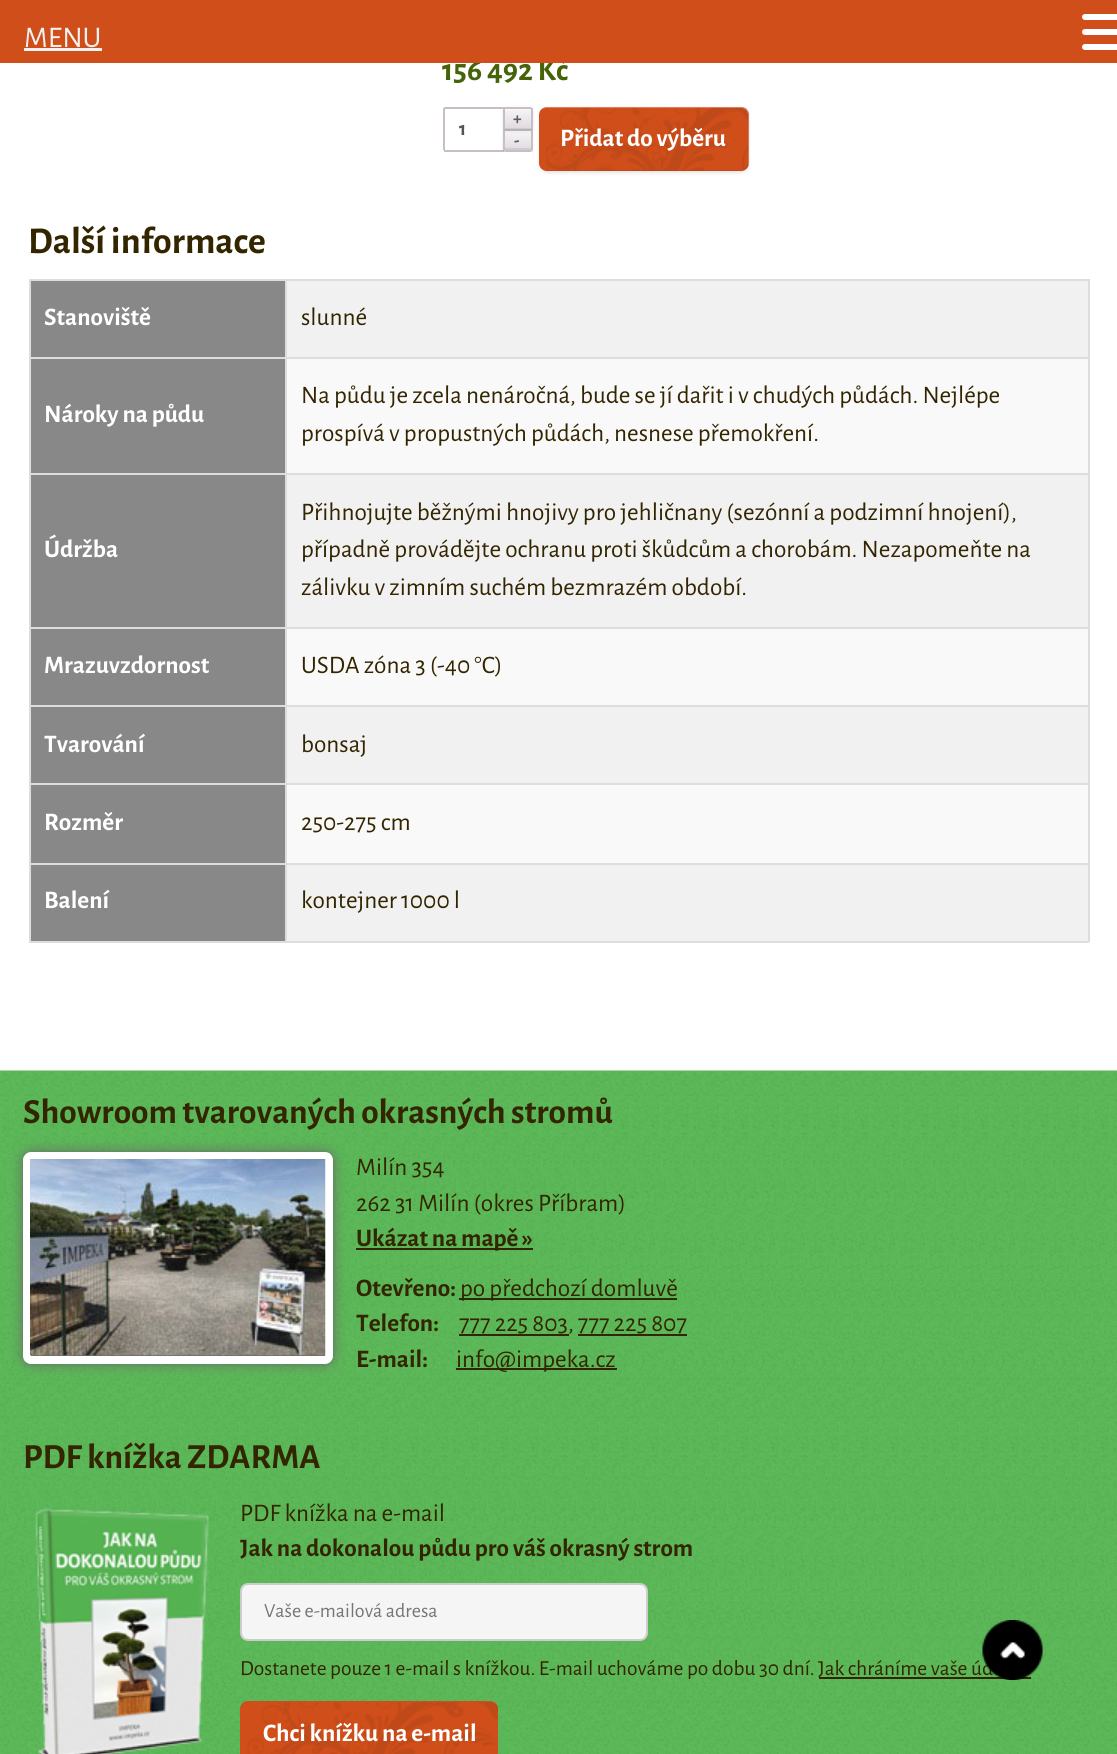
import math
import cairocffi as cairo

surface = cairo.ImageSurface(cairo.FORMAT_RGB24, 1117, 1754)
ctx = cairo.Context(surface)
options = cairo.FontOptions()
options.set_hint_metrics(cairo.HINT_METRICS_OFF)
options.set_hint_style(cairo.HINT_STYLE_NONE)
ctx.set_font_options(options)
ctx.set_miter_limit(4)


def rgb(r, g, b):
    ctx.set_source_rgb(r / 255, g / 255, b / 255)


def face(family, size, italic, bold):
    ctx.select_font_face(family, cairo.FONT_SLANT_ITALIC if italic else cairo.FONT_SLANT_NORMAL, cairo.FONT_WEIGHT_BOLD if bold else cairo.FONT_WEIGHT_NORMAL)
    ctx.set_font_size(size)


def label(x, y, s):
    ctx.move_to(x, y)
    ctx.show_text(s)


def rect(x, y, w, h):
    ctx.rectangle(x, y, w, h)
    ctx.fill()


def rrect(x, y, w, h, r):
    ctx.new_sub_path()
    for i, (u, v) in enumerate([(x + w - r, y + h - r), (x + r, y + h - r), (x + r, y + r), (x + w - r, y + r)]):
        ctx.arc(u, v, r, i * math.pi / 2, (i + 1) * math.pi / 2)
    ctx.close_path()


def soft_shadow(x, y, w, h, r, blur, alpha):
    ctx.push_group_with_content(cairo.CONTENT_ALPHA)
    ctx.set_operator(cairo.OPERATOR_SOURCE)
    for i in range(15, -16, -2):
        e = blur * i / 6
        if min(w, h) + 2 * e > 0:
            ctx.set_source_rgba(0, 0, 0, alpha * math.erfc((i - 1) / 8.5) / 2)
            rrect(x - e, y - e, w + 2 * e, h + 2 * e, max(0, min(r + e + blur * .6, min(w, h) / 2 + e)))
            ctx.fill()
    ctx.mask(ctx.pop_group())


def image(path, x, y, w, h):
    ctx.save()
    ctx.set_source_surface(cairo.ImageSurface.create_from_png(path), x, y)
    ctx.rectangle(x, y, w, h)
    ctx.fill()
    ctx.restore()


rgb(255, 255, 255)
ctx.paint()
face('Alegreya Sans', 31.5, 0, 1)
rgb(69, 99, 8)
label(442, 80, '156 492 Kč')
rgb(208, 78, 25)
rect(0, 0, 1117, 63)
face('Alegreya Sans', 30, 0, 0)
rgb(242, 242, 242)
label(24, 47, 'MENU')
rect(24, 48, 78, 3)
rgb(255, 255, 255)
rrect(1082, 14, 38, 6, 3)
ctx.fill()
rrect(1082, 29, 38, 6, 3)
ctx.fill()
rrect(1082, 44, 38, 6, 3)
ctx.fill()
rgb(200, 191, 198)
rect(444, 107, 60, 2)
rect(444, 150, 60, 2)
ctx.save()
ctx.rectangle(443, 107, 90, 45)
ctx.clip()
rgb(0, 0, 0)
soft_shadow(503, 131, 30, 22, 3, 1.5, 0.1)
ctx.restore()
gradient = cairo.LinearGradient(518, 131, 518, 150)
gradient.add_color_stop_rgba(0, 0.969, 0.965, 0.969, 1)
gradient.add_color_stop_rgba(1, 0.878, 0.855, 0.875, 1)
ctx.set_source(gradient)
rect(503, 132, 30, 18)
rgb(249, 248, 249)
rect(504, 131, 27, 1)
rgb(209, 203, 208)
ctx.new_path()
ctx.move_to(504, 147)
ctx.curve_to(504, 151, 505.5, 150, 509.5, 150)
ctx.line_to(525.5, 150)
ctx.curve_to(529.5, 150, 531, 151, 531, 147)
ctx.curve_to(531, 148, 530, 148, 530, 148)
ctx.line_to(506, 148)
ctx.curve_to(505, 148, 504, 148, 504, 147)
ctx.close_path()
ctx.fill()
ctx.new_path()
ctx.move_to(504, 130)
ctx.line_to(532, 130)
ctx.line_to(532, 149)
ctx.curve_to(532, 150, 531, 151, 530, 151)
ctx.line_to(506, 151)
ctx.curve_to(505, 151, 504, 150, 504, 149)
ctx.close_path()
rgb(200, 191, 198)
ctx.stroke()
rgb(0, 0, 0)
soft_shadow(503, 108, 30, 23, 3, 1.5, 0.1)
ctx.save()
ctx.new_path()
ctx.move_to(506, 107)
ctx.line_to(530, 107)
ctx.curve_to(531.5, 107, 533, 108.5, 533, 110)
ctx.line_to(533, 129)
ctx.line_to(503, 129)
ctx.line_to(503, 110)
ctx.curve_to(503, 108.5, 504.5, 107, 506, 107)
ctx.close_path()
ctx.clip()
gradient = cairo.LinearGradient(518, 87, 518, 108)
gradient.add_color_stop_rgba(0, 0.969, 0.965, 0.969, 1)
gradient.add_color_stop_rgba(1, 0.878, 0.855, 0.875, 1)
ctx.set_source(gradient)
rect(503, 107, 30, 1)
ctx.restore()
gradient = cairo.LinearGradient(518, 108, 518, 129)
gradient.add_color_stop_rgba(0, 0.969, 0.965, 0.969, 1)
gradient.add_color_stop_rgba(1, 0.878, 0.855, 0.875, 1)
ctx.set_source(gradient)
rect(505, 109, 26, 19)
rgb(248, 248, 248)
ctx.new_path()
ctx.move_to(506, 110)
ctx.line_to(530, 110)
ctx.curve_to(530, 110, 531, 110, 531, 111)
ctx.curve_to(531, 107, 529.5, 108, 525.5, 108)
ctx.line_to(509.5, 108)
ctx.curve_to(505.5, 108, 504, 107, 504, 111)
ctx.curve_to(504, 110, 505, 110, 506, 110)
ctx.close_path()
ctx.fill()
rgb(208, 203, 207)
rect(504, 128, 27, 1)
rgb(200, 191, 198)
rect(504, 107, 27, 2)
rect(531, 108, 2, 21)
rect(503, 108, 2, 21)
face('Alegreya Sans', 18, 0, 1)
rgb(94, 94, 94)
label(513, 124, '+')
rgb(200, 191, 198)
rect(443, 108, 2, 42)
face('Alegreya Sans', 20, 0, 1)
rgb(84, 84, 84)
label(459, 135, '1')
face('Alegreya Sans', 18, 0, 1)
rgb(94, 94, 94)
label(514, 146, '-')
rgb(0, 0, 0)
soft_shadow(539, 108, 210, 65, 8, 1.5, 0.1)
rgb(208, 78, 25)
rrect(539, 107, 210, 64, 8)
ctx.fill()
image('image0.png', 546, 107, 203, 64)
ctx.set_source_rgba(1, 1, 1, 0.3)
ctx.new_path()
ctx.move_to(546, 108)
ctx.line_to(741, 108)
ctx.curve_to(745, 108, 748, 111, 748, 116)
ctx.line_to(748, 165)
ctx.line_to(748, 168)
ctx.curve_to(748, 166, 749, 165, 749, 163)
ctx.line_to(749, 115)
ctx.curve_to(749, 111, 745, 107, 741, 107)
ctx.line_to(547, 107)
ctx.curve_to(545, 107, 542, 108, 541, 110)
ctx.curve_to(542, 109, 544, 108, 546, 108)
ctx.close_path()
ctx.fill()
ctx.set_source_rgba(0, 0, 0, 0.07)
ctx.new_path()
ctx.move_to(540, 167)
ctx.curve_to(542, 169, 544, 171, 547, 171)
ctx.line_to(741, 171)
ctx.curve_to(745, 171, 749, 167, 749, 163)
ctx.line_to(749, 115)
ctx.curve_to(749, 114, 749, 112, 748, 111)
ctx.line_to(748, 162)
ctx.curve_to(748, 166, 745, 170, 741, 170)
ctx.line_to(546, 170)
ctx.curve_to(544, 170, 542, 169, 540, 167)
ctx.close_path()
ctx.fill()
face('Alegreya Sans', 25.2, 0, 1)
rgb(255, 255, 255)
label(560, 146, 'Přidat do výběru')
face('Alegreya Sans', 37.75, 0, 1)
rgb(51, 37, 0)
label(28, 253, 'Další informace')
rgb(136, 136, 136)
rect(31, 281, 254, 76)
rgb(221, 221, 221)
rect(285, 279, 804, 2)
rect(285, 357, 804, 2)
rect(285, 473, 804, 2)
rect(285, 627, 804, 2)
rect(285, 705, 804, 2)
rect(285, 783, 804, 2)
rect(285, 863, 804, 2)
rect(1088, 863, 2, 79)
rect(285, 941, 804, 2)
rect(285, 863, 2, 79)
rect(29, 863, 258, 2)
rect(285, 783, 2, 81)
rect(29, 783, 258, 2)
rect(285, 705, 2, 80)
rect(29, 705, 258, 2)
rect(285, 627, 2, 80)
rect(29, 627, 258, 2)
rect(285, 473, 2, 156)
rect(29, 473, 258, 2)
rect(285, 357, 2, 117)
rect(29, 357, 258, 2)
rect(285, 279, 2, 80)
rect(29, 279, 258, 2)
rect(29, 941, 258, 2)
rect(29, 863, 2, 79)
rect(29, 783, 2, 81)
rect(29, 705, 2, 80)
rect(29, 627, 2, 80)
rect(29, 473, 2, 156)
rect(29, 357, 2, 117)
rect(29, 279, 2, 80)
face('Alegreya Sans', 25.2, 0, 1)
rgb(255, 255, 255)
label(44, 325, 'Stanoviště')
rgb(241, 241, 241)
rect(287, 281, 801, 76)
rgb(221, 221, 221)
rect(1088, 783, 2, 81)
rect(1088, 705, 2, 80)
rect(1088, 627, 2, 80)
rect(1088, 473, 2, 156)
rect(1088, 357, 2, 117)
rect(1088, 279, 2, 80)
face('Alegreya Sans', 25.2, 0, 0)
rgb(51, 37, 0)
label(301, 325, 'slunné')
rgb(136, 136, 136)
rect(31, 359, 254, 114)
face('Alegreya Sans', 25.2, 0, 1)
rgb(255, 255, 255)
label(44, 422, 'Nároky na půdu')
rgb(249, 249, 249)
rect(287, 359, 801, 114)
face('Alegreya Sans', 25.2, 0, 0)
rgb(51, 37, 0)
label(301, 403, 'Na půdu je zcela nenáročná, bude se jí dařit i v chudých půdách. Nejlépe')
label(301, 441, 'prospívá v propustných půdách, nesnese přemokření.')
rgb(136, 136, 136)
rect(31, 475, 254, 152)
face('Alegreya Sans', 25.2, 0, 1)
rgb(255, 255, 255)
label(44, 557, 'Údržba')
rgb(241, 241, 241)
rect(287, 475, 801, 152)
face('Alegreya Sans', 25.2, 0, 0)
rgb(51, 37, 0)
label(301, 520, 'Přihnojujte běžnými hnojivy pro jehličnany (sezónní a podzimní hnojení),')
label(301, 557, 'případně provádějte ochranu proti škůdcům a chorobám. Nezapomeňte na')
label(301, 595, 'zálivku v zimním suchém bezmrazém období.')
rgb(136, 136, 136)
rect(31, 629, 254, 76)
face('Alegreya Sans', 25.2, 0, 1)
rgb(255, 255, 255)
label(44, 673, 'Mrazuvzdornost')
rgb(249, 249, 249)
rect(287, 629, 801, 76)
face('Alegreya Sans', 25.2, 0, 0)
rgb(51, 37, 0)
label(301, 673, 'USDA zóna 3 (-40 °C)')
rgb(136, 136, 136)
rect(31, 707, 254, 76)
face('Alegreya Sans', 25.2, 0, 1)
rgb(255, 255, 255)
label(44, 752, 'Tvarování')
rgb(241, 241, 241)
rect(287, 707, 801, 76)
face('Alegreya Sans', 25.2, 0, 0)
rgb(51, 37, 0)
label(301, 752, 'bonsaj')
rgb(136, 136, 136)
rect(31, 785, 254, 78)
face('Alegreya Sans', 25.2, 0, 1)
rgb(255, 255, 255)
label(44, 830, 'Rozměr')
rgb(249, 249, 249)
rect(287, 785, 801, 78)
face('Alegreya Sans', 25.2, 0, 0)
rgb(51, 37, 0)
label(301, 830, '250-275 cm')
rgb(136, 136, 136)
rect(31, 865, 254, 76)
face('Alegreya Sans', 25.2, 0, 1)
rgb(255, 255, 255)
label(44, 908, 'Balení')
rgb(241, 241, 241)
rect(287, 865, 801, 76)
face('Alegreya Sans', 25.2, 0, 0)
rgb(51, 37, 0)
label(301, 908, 'kontejner 1000 l')
image('image1.png', 0, 1070, 1117, 684)
face('Alegreya Sans', 35.25, 0, 1)
label(23, 1123, 'Showroom tvarovaných okrasných stromů')
rgb(102, 102, 102)
soft_shadow(23, 1152, 310, 212, 8, 6, 1)
rrect(27, 1156, 302, 204, 4)
rgb(255, 255, 255)
ctx.set_line_width(8)
ctx.stroke()
image('image2.png', 30, 1159, 296, 197)
face('Alegreya Sans', 25.2, 0, 0)
rgb(51, 37, 0)
label(356, 1175, 'Milín 354')
label(356, 1211, '262 31 Milín (okres Příbram)')
rect(356, 1248, 177, 2)
face('Alegreya Sans', 25.2, 0, 1)
label(356, 1246, 'Ukázat na mapě »')
label(356, 1296, 'Otevřeno:')
rect(459, 1298, 218, 2)
face('Alegreya Sans', 25.2, 0, 0)
label(460, 1296, 'po předchozí domluvě')
face('Alegreya Sans', 25.2, 0, 1)
label(356, 1331, 'Telefon:')
face('Alegreya Sans', 25.2, 0, 0)
label(459, 1331, '777 225 803, 777 225 807')
rect(459, 1334, 110, 2)
rect(578, 1334, 109, 2)
face('Alegreya Sans', 25.2, 0, 1)
label(356, 1367, 'E-mail:')
rect(456, 1368, 161, 2)
face('Alegreya Sans', 25.2, 0, 0)
label(456, 1367, 'info@impeka.cz')
face('Alegreya Sans', 35.25, 0, 1)
label(23, 1468, 'PDF knížka ZDARMA')
image('image3.png', 28, 1508, 181, 246)
face('Alegreya Sans', 25.2, 0, 0)
label(240, 1521, 'PDF knížka na e-mail')
face('Alegreya Sans', 25.2, 0, 1)
label(240, 1556, 'Jak na dokonalou půdu pro váš okrasný strom')
rgb(245, 245, 245)
rrect(241, 1584, 406, 56, 7)
ctx.fill_preserve()
rgb(204, 204, 204)
ctx.set_line_width(2)
ctx.stroke()
face('Alegreya Sans', 20, 0, 0)
rgb(117, 117, 117)
label(264, 1617, 'Vaše e-mailová adresa')
face('Alegreya Sans', 21.4, 0, 0)
rgb(51, 37, 0)
label(240, 1675, 'Dostanete pouze 1 e-mail s knížkou. E-mail uchováme po dobu 30 dní.')
rect(819, 1677, 212, 2)
label(818, 1675, 'Jak chráníme vaše úd')
rgb(208, 78, 25)
rrect(240, 1701, 258, 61, 8)
ctx.fill()
image('image4.png', 247, 1702, 251, 52)
face('Alegreya Sans', 25.2, 0, 1)
rgb(255, 255, 255)
label(263, 1741, 'Chci knížku na e-mail')
image('image5.png', 982, 1620, 61, 60)
surface.write_to_png('render.png')
